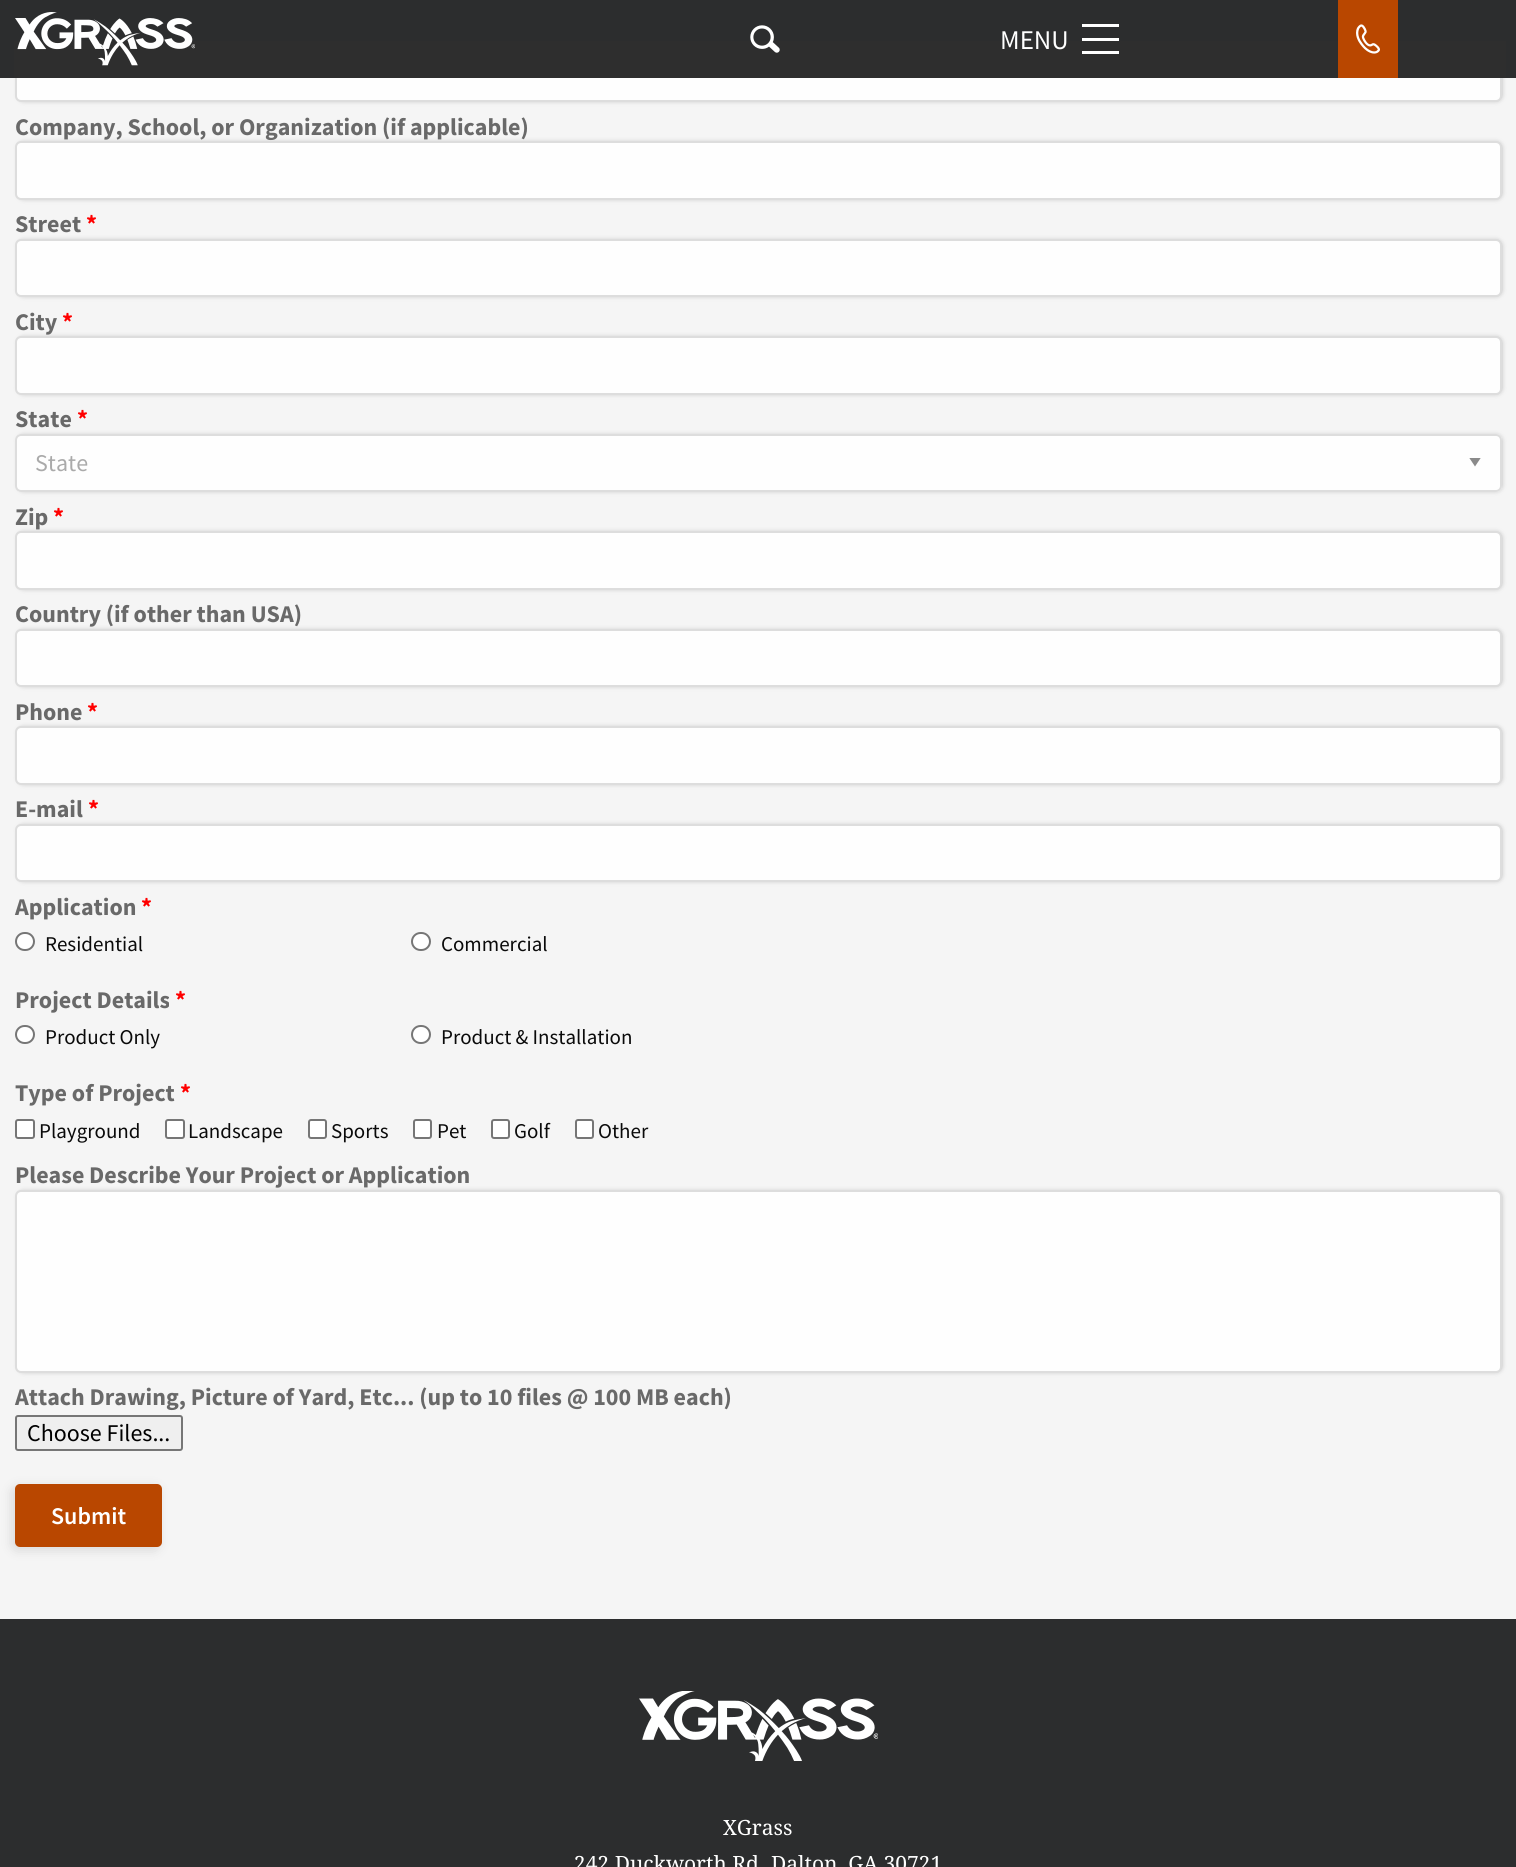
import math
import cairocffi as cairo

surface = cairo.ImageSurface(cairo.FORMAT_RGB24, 1516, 1867)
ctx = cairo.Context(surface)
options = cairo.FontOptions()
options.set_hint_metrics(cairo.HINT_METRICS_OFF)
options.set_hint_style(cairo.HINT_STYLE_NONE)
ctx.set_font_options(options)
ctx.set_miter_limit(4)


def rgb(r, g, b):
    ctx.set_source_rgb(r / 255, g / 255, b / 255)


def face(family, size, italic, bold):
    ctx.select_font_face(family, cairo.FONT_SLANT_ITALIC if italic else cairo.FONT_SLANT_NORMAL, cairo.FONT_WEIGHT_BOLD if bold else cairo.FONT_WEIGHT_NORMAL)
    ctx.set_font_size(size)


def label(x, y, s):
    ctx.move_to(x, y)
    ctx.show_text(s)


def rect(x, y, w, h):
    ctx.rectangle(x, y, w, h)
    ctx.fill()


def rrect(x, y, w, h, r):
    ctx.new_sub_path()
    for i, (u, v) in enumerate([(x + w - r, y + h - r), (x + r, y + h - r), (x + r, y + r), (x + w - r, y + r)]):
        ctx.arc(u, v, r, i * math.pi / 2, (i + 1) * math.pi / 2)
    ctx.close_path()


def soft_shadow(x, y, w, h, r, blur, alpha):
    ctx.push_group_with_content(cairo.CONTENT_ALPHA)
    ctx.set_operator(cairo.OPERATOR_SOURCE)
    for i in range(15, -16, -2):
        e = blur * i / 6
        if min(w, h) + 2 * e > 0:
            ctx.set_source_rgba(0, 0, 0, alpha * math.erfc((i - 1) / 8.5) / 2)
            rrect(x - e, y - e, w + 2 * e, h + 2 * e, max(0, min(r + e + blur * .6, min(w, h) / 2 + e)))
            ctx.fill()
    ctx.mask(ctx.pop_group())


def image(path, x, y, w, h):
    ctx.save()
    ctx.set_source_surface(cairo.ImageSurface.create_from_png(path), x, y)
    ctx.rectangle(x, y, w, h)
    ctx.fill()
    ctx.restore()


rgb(44, 45, 46)
ctx.paint()
rgb(245, 245, 245)
rect(0, 78, 1516, 1541)
rgb(0, 0, 0)
soft_shadow(20, 47, 1480, 52, 3, 3, 0.5)
rgb(254, 254, 254)
rrect(16, 45, 1485, 56, 5)
ctx.fill_preserve()
rgb(221, 221, 221)
ctx.stroke()
rgb(46, 46, 46)
rect(14, 41, 1492, 37)
image('image0.png', 15, 12, 180, 54)
image('image1.png', 750, 25, 30, 28)
face('Source Sans Pro', 27, 0, 0)
rgb(255, 255, 255)
label(1000, 49, 'MENU')
rect(1082, 38, 37, 3)
rect(1082, 24, 37, 3)
rect(1082, 51, 37, 3)
rgb(185, 71, 0)
rect(1338, 0, 60, 78)
image('image2.png', 1356, 24, 24, 30)
rgb(0, 0, 0)
soft_shadow(20, 144, 1480, 53, 3, 3, 0.5)
face('Source Sans Pro', 24, 0, 1)
rgb(105, 105, 105)
label(15, 135, 'Company, School, or Organization (if applicable)')
rgb(254, 254, 254)
rrect(16, 142, 1485, 57, 5)
ctx.fill_preserve()
rgb(221, 221, 221)
ctx.stroke()
rgb(0, 0, 0)
soft_shadow(20, 242, 1480, 52, 3, 3, 0.5)
rgb(105, 105, 105)
label(15, 232, 'Street')
rgb(255, 0, 0)
label(86, 232, '*')
rgb(254, 254, 254)
rrect(16, 240, 1485, 56, 5)
ctx.fill_preserve()
rgb(221, 221, 221)
ctx.stroke()
rgb(0, 0, 0)
soft_shadow(20, 339, 1480, 53, 3, 3, 0.5)
rgb(105, 105, 105)
label(15, 330, 'City')
rgb(255, 0, 0)
label(62, 330, '*')
rgb(254, 254, 254)
rrect(16, 337, 1485, 57, 5)
ctx.fill_preserve()
rgb(221, 221, 221)
ctx.stroke()
rgb(105, 105, 105)
label(15, 427, 'State')
rgb(255, 0, 0)
label(77, 427, '*')
rgb(0, 0, 0)
soft_shadow(20, 437, 1480, 52, 3, 3, 0.5)
rgb(254, 254, 254)
rrect(15, 434, 1487, 58, 6)
ctx.fill()
ctx.save()
ctx.rectangle(1469, 458, 13, 9)
ctx.clip()
rgb(138, 138, 138)
ctx.new_path()
ctx.move_to(1469, 457.5)
ctx.line_to(1481, 457.5)
ctx.line_to(1475, 466.5)
ctx.close_path()
ctx.fill()
ctx.restore()
rrect(16, 435, 1485, 56, 5)
rgb(221, 221, 221)
ctx.stroke()
face('Source Sans Pro', 24, 0, 0)
rgb(170, 170, 170)
label(35, 471, 'State')
rgb(0, 0, 0)
soft_shadow(20, 534, 1480, 53, 3, 3, 0.5)
face('Source Sans Pro', 24, 0, 1)
rgb(105, 105, 105)
label(15, 525, 'Zip')
rgb(255, 0, 0)
label(53, 525, '*')
rgb(254, 254, 254)
rrect(16, 532, 1485, 57, 5)
ctx.fill_preserve()
rgb(221, 221, 221)
ctx.stroke()
rgb(0, 0, 0)
soft_shadow(20, 632, 1480, 52, 3, 3, 0.5)
rgb(105, 105, 105)
label(15, 622, 'Country (if other than USA)')
rgb(254, 254, 254)
rrect(16, 630, 1485, 56, 5)
ctx.fill_preserve()
rgb(221, 221, 221)
ctx.stroke()
rgb(0, 0, 0)
soft_shadow(20, 729, 1480, 53, 3, 3, 0.5)
rgb(105, 105, 105)
label(15, 720, 'Phone')
rgb(255, 0, 0)
label(87, 720, '*')
rgb(254, 254, 254)
rrect(16, 727, 1485, 57, 5)
ctx.fill_preserve()
rgb(221, 221, 221)
ctx.stroke()
rgb(0, 0, 0)
soft_shadow(20, 827, 1480, 52, 3, 3, 0.5)
rgb(105, 105, 105)
label(15, 817, 'E-mail')
rgb(255, 0, 0)
label(88, 817, '*')
rgb(254, 254, 254)
rrect(16, 825, 1485, 56, 5)
ctx.fill_preserve()
rgb(221, 221, 221)
ctx.stroke()
rgb(105, 105, 105)
label(15, 915, 'Application')
rgb(255, 0, 0)
label(141, 915, '*')
rgb(255, 255, 255)
rrect(16, 933, 18, 17, 8.5)
ctx.fill_preserve()
rgb(118, 118, 118)
ctx.stroke()
face('Source Sans Pro', 21, 0, 0)
rgb(10, 10, 10)
label(45, 951, 'Residential')
rgb(255, 255, 255)
rrect(412, 933, 18, 17, 8.5)
ctx.fill_preserve()
rgb(118, 118, 118)
ctx.stroke()
rgb(10, 10, 10)
label(441, 951, 'Commercial')
face('Source Sans Pro', 24, 0, 1)
rgb(105, 105, 105)
label(15, 1008, 'Project Details')
rgb(255, 0, 0)
label(175, 1008, '*')
rgb(255, 255, 255)
rrect(16, 1026, 18, 17, 8.5)
ctx.fill_preserve()
rgb(118, 118, 118)
ctx.stroke()
face('Source Sans Pro', 21, 0, 0)
rgb(10, 10, 10)
label(45, 1044, 'Product Only')
rgb(255, 255, 255)
rrect(412, 1026, 18, 17, 8.5)
ctx.fill_preserve()
rgb(118, 118, 118)
ctx.stroke()
rgb(10, 10, 10)
label(441, 1044, 'Product & Installation')
face('Source Sans Pro', 24, 0, 1)
rgb(105, 105, 105)
label(15, 1101, 'Type of Project')
rgb(255, 0, 0)
label(180, 1101, '*')
rgb(255, 255, 255)
rrect(16, 1120, 18, 18, 2)
ctx.fill_preserve()
rgb(118, 118, 118)
ctx.stroke()
face('Source Sans Pro', 21, 0, 0)
rgb(10, 10, 10)
label(39, 1138, 'Playground')
rgb(255, 255, 255)
rrect(166, 1120, 18, 18, 2)
ctx.fill_preserve()
rgb(118, 118, 118)
ctx.stroke()
rgb(10, 10, 10)
label(188, 1138, 'Landscape')
rgb(255, 255, 255)
rrect(309, 1120, 17, 18, 2)
ctx.fill_preserve()
rgb(118, 118, 118)
ctx.stroke()
rgb(10, 10, 10)
label(331, 1138, 'Sports')
rgb(255, 255, 255)
rrect(414, 1120, 17, 18, 2)
ctx.fill_preserve()
rgb(118, 118, 118)
ctx.stroke()
rgb(10, 10, 10)
label(437, 1138, 'Pet')
rgb(255, 255, 255)
rrect(492, 1120, 17, 18, 2)
ctx.fill_preserve()
rgb(118, 118, 118)
ctx.stroke()
rgb(10, 10, 10)
label(514, 1138, 'Golf')
rgb(255, 255, 255)
rrect(576, 1120, 17, 18, 2)
ctx.fill_preserve()
rgb(118, 118, 118)
ctx.stroke()
rgb(10, 10, 10)
label(598, 1138, 'Other')
face('Source Sans Pro', 24, 0, 1)
rgb(105, 105, 105)
label(15, 1183, 'Please Describe Your Project or Application')
rgb(0, 0, 0)
soft_shadow(20, 1193, 1480, 177, 3, 3, 0.5)
rgb(254, 254, 254)
rrect(16, 1191, 1485, 181, 5)
ctx.fill_preserve()
rgb(221, 221, 221)
ctx.stroke()
rgb(105, 105, 105)
label(15, 1405, 'Attach Drawing, Picture of Yard, Etc... (up to 10 files @ 100 MB each)')
rgb(239, 239, 239)
rrect(16, 1416, 166, 34, 2)
ctx.fill_preserve()
rgb(118, 118, 118)
ctx.stroke()
face('Source Sans Pro', 24, 0, 0)
rgb(0, 0, 0)
label(27, 1441, 'Choose Files...')
rgb(0, 0, 0)
soft_shadow(12, 1487, 147, 63, 5, 6, 0.12)
rgb(185, 71, 0)
rrect(15, 1484, 147, 63, 5)
ctx.fill()
face('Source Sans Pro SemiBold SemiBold', 24, 0, 0)
rgb(255, 255, 255)
label(51, 1524, 'Submit')
image('image3.png', 639, 1691, 239, 70)
face('Droid Serif', 21, 0, 0)
label(723, 1835, 'XGrass')
label(574, 1871, '242 Duckworth Rd')
label(771, 1871, 'Dalton, GA 30721')
surface.write_to_png('render.png')
